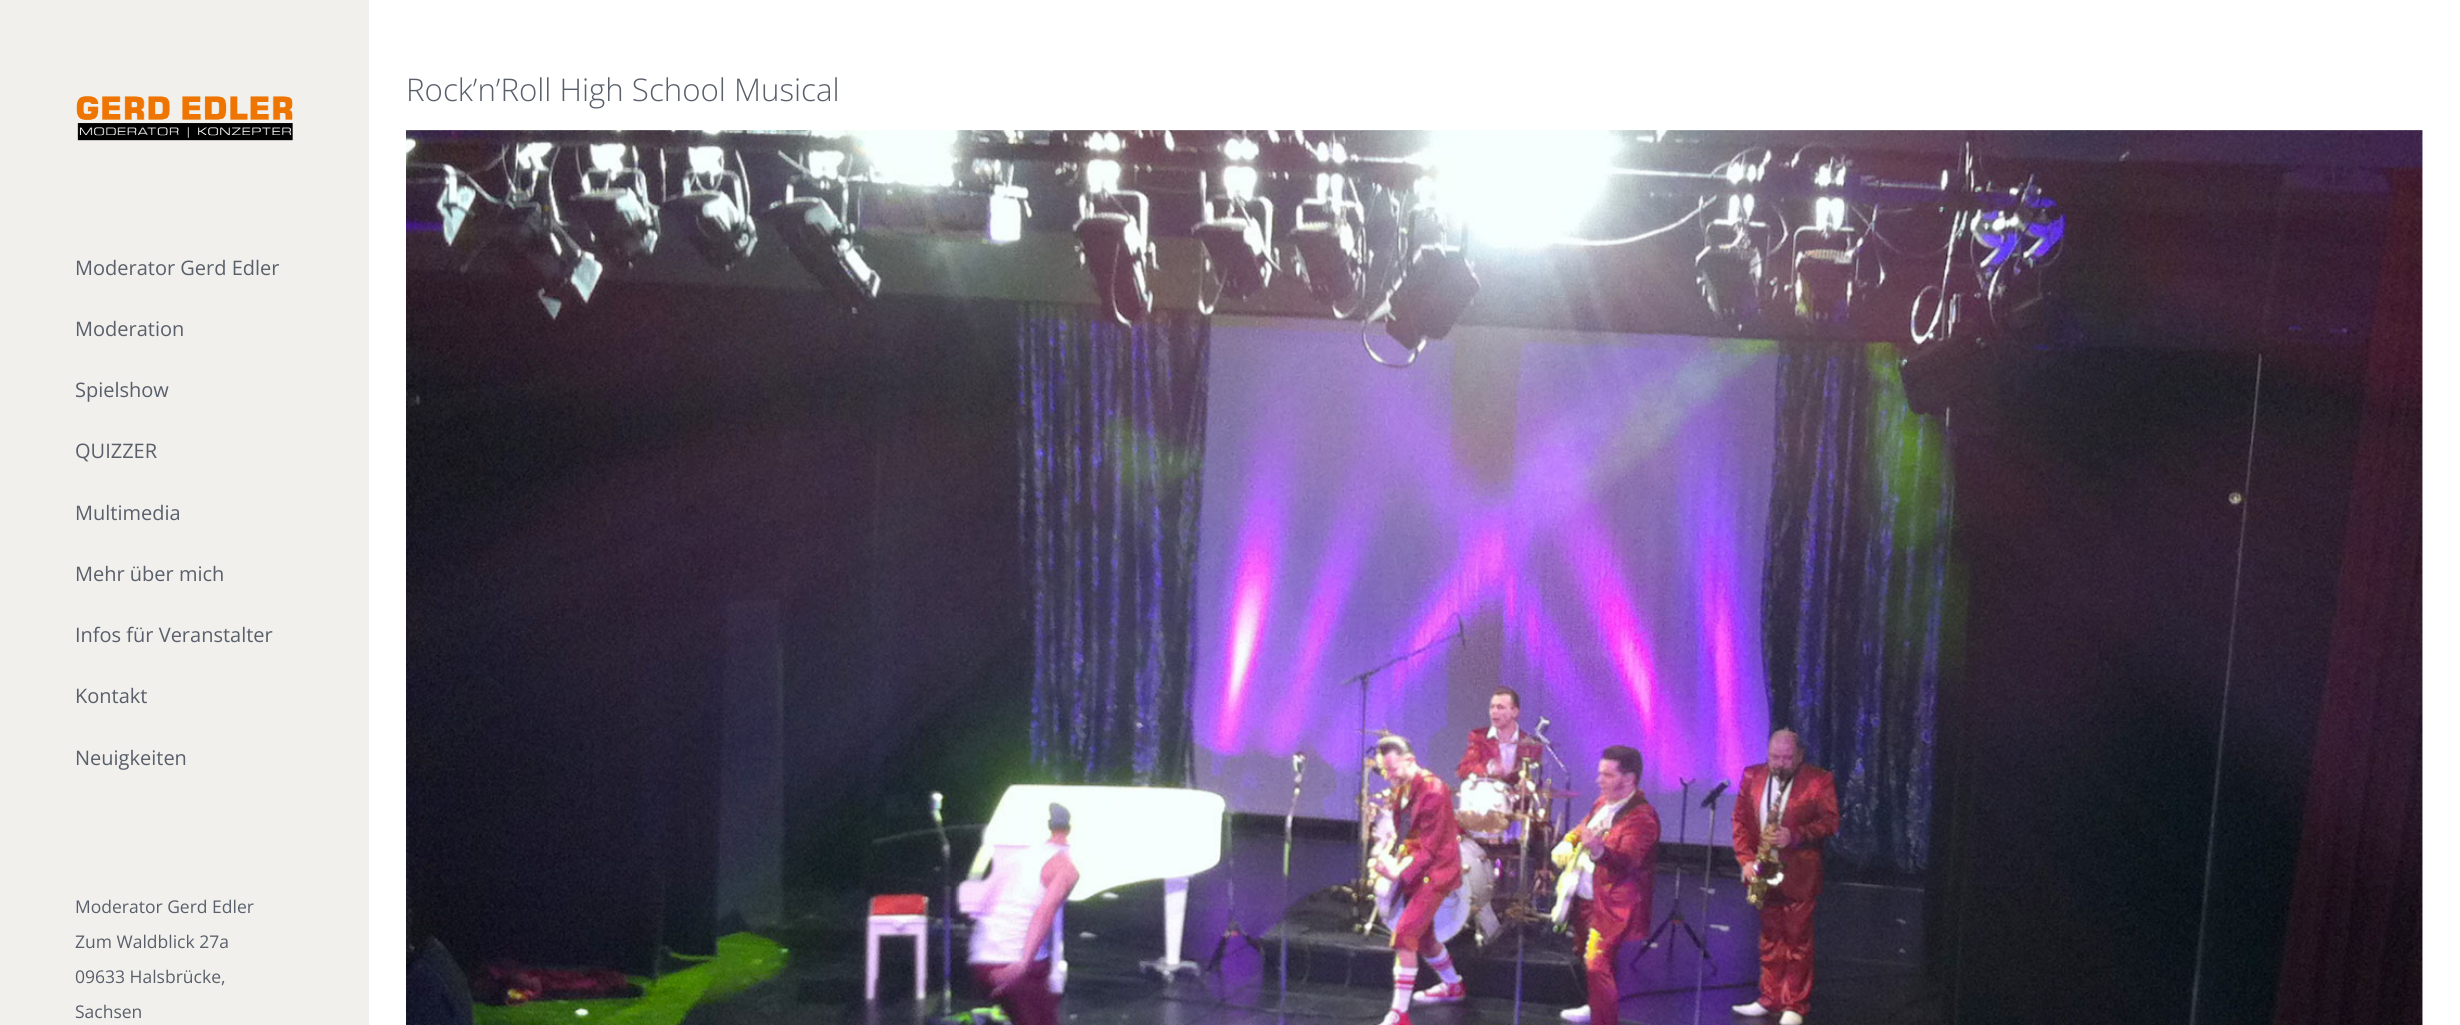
import math
import cairocffi as cairo

surface = cairo.ImageSurface(cairo.FORMAT_RGB24, 2460, 1025)
ctx = cairo.Context(surface)
options = cairo.FontOptions()
options.set_hint_metrics(cairo.HINT_METRICS_OFF)
options.set_hint_style(cairo.HINT_STYLE_NONE)
ctx.set_font_options(options)
ctx.set_miter_limit(4)


def rgb(r, g, b):
    ctx.set_source_rgb(r / 255, g / 255, b / 255)


def face(family, size, italic, bold):
    ctx.select_font_face(family, cairo.FONT_SLANT_ITALIC if italic else cairo.FONT_SLANT_NORMAL, cairo.FONT_WEIGHT_BOLD if bold else cairo.FONT_WEIGHT_NORMAL)
    ctx.set_font_size(size)


def label(x, y, s):
    ctx.move_to(x, y)
    ctx.show_text(s)


def rect(x, y, w, h):
    ctx.rectangle(x, y, w, h)
    ctx.fill()


def image(path, x, y, w, h):
    ctx.save()
    ctx.set_source_surface(cairo.ImageSurface.create_from_png(path), x, y)
    ctx.rectangle(x, y, w, h)
    ctx.fill()
    ctx.restore()


rgb(255, 255, 255)
ctx.paint()
face('Open Sans Light', 31.25, 0, 0)
rgb(89, 95, 107)
label(406, 101, 'Rock’n’Roll High School Musical')
image('image0.png', 406, 130, 2017, 895)
rgb(241, 240, 236)
rect(0, 0, 369, 1025)
image('image1.png', 76, 96, 217, 45)
face('Open Sans', 20, 0, 0)
rgb(89, 95, 107)
label(75, 275, 'Moderator Gerd Edler')
label(75, 336, 'Moderation')
label(75, 397, 'Spielshow')
label(75, 458, 'QUIZZER')
label(75, 520, 'Multimedia')
label(75, 581, 'Mehr über mich')
label(75, 642, 'Infos für Veranstalter')
label(75, 703, 'Kontakt')
label(75, 765, 'Neuigkeiten')
face('Open Sans', 17.5, 0, 0)
label(75, 913, 'Moderator Gerd Edler')
label(75, 948, 'Zum Waldblick 27a')
label(75, 983, '09633 Halsbrücke,')
label(75, 1018, 'Sachsen')
surface.write_to_png('render.png')
